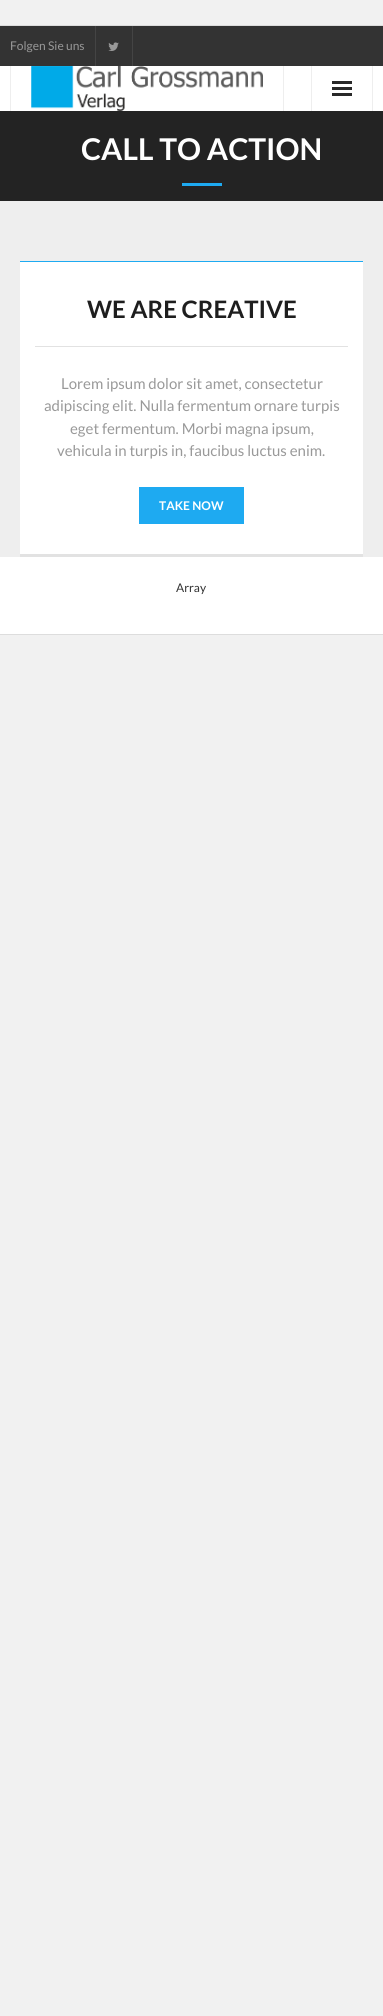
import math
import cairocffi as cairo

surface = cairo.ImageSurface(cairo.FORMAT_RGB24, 383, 2016)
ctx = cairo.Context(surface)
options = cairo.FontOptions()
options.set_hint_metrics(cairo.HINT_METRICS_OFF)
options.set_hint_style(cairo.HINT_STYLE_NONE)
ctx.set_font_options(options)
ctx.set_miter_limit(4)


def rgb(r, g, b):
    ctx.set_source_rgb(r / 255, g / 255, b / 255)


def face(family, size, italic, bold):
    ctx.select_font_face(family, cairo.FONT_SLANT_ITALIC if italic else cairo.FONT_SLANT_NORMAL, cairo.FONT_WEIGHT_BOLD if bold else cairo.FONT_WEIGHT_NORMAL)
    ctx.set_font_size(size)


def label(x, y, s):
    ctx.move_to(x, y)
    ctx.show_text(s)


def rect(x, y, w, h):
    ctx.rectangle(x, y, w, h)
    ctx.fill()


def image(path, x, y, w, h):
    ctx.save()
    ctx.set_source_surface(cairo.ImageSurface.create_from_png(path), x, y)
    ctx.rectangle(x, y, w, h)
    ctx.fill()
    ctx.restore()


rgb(241, 241, 241)
ctx.paint()
rgb(238, 238, 238)
rect(0, 201, 383, 356)
rgb(221, 221, 221)
rect(0, 25, 383, 1)
rect(0, 634, 383, 1)
rgb(51, 51, 51)
rect(0, 26, 383, 40)
face('Lato', 12, 0, 0)
rgb(153, 153, 153)
label(10, 50, 'Folgen Sie uns')
rgb(68, 68, 68)
rect(132, 26, 1, 40)
rect(95, 26, 1, 40)
image('image0.png', 108, 42, 11, 9)
rgb(255, 255, 255)
rect(0, 66, 383, 45)
rgb(238, 238, 238)
rect(283, 66, 1, 45)
rect(10, 66, 1, 45)
image('image1.png', 31, 66, 232, 45)
rect(372, 66, 1, 45)
rect(311, 66, 1, 45)
rgb(41, 41, 41)
rect(332, 81, 20, 3)
rect(332, 87, 20, 3)
rect(332, 93, 20, 3)
rgb(35, 35, 35)
rect(0, 111, 383, 90)
face('Lato', 30, 0, 1)
rgb(255, 255, 255)
label(81, 160, 'CALL TO ACTION')
rgb(30, 170, 241)
rect(182, 183, 40, 3)
rgb(255, 255, 255)
rect(20, 262, 343, 292)
rgb(30, 170, 241)
rect(20, 261, 343, 1)
rgb(226, 226, 226)
rect(20, 554, 343, 3)
rect(35, 346, 313, 1)
face('Lato', 24, 0, 1)
rgb(30, 30, 30)
label(87, 318, 'WE ARE CREATIVE')
face('Lato', 15, 0, 0)
rgb(153, 153, 153)
label(61, 389, 'Lorem ipsum dolor sit amet, consectetur')
label(44, 411, 'adipiscing elit. Nulla fermentum ornare turpis')
label(70, 434, 'eget fermentum. Morbi magna ipsum,')
label(57, 456, 'vehicula in turpis in, faucibus luctus enim.')
rgb(30, 170, 241)
rect(139, 487, 105, 37)
face('Lato', 12, 0, 1)
rgb(255, 255, 255)
label(159, 510, 'TAKE NOW')
rect(0, 557, 383, 77)
face('Lato', 12, 0, 0)
rgb(51, 51, 51)
label(176, 592, 'Array')
surface.write_to_png('render.png')
